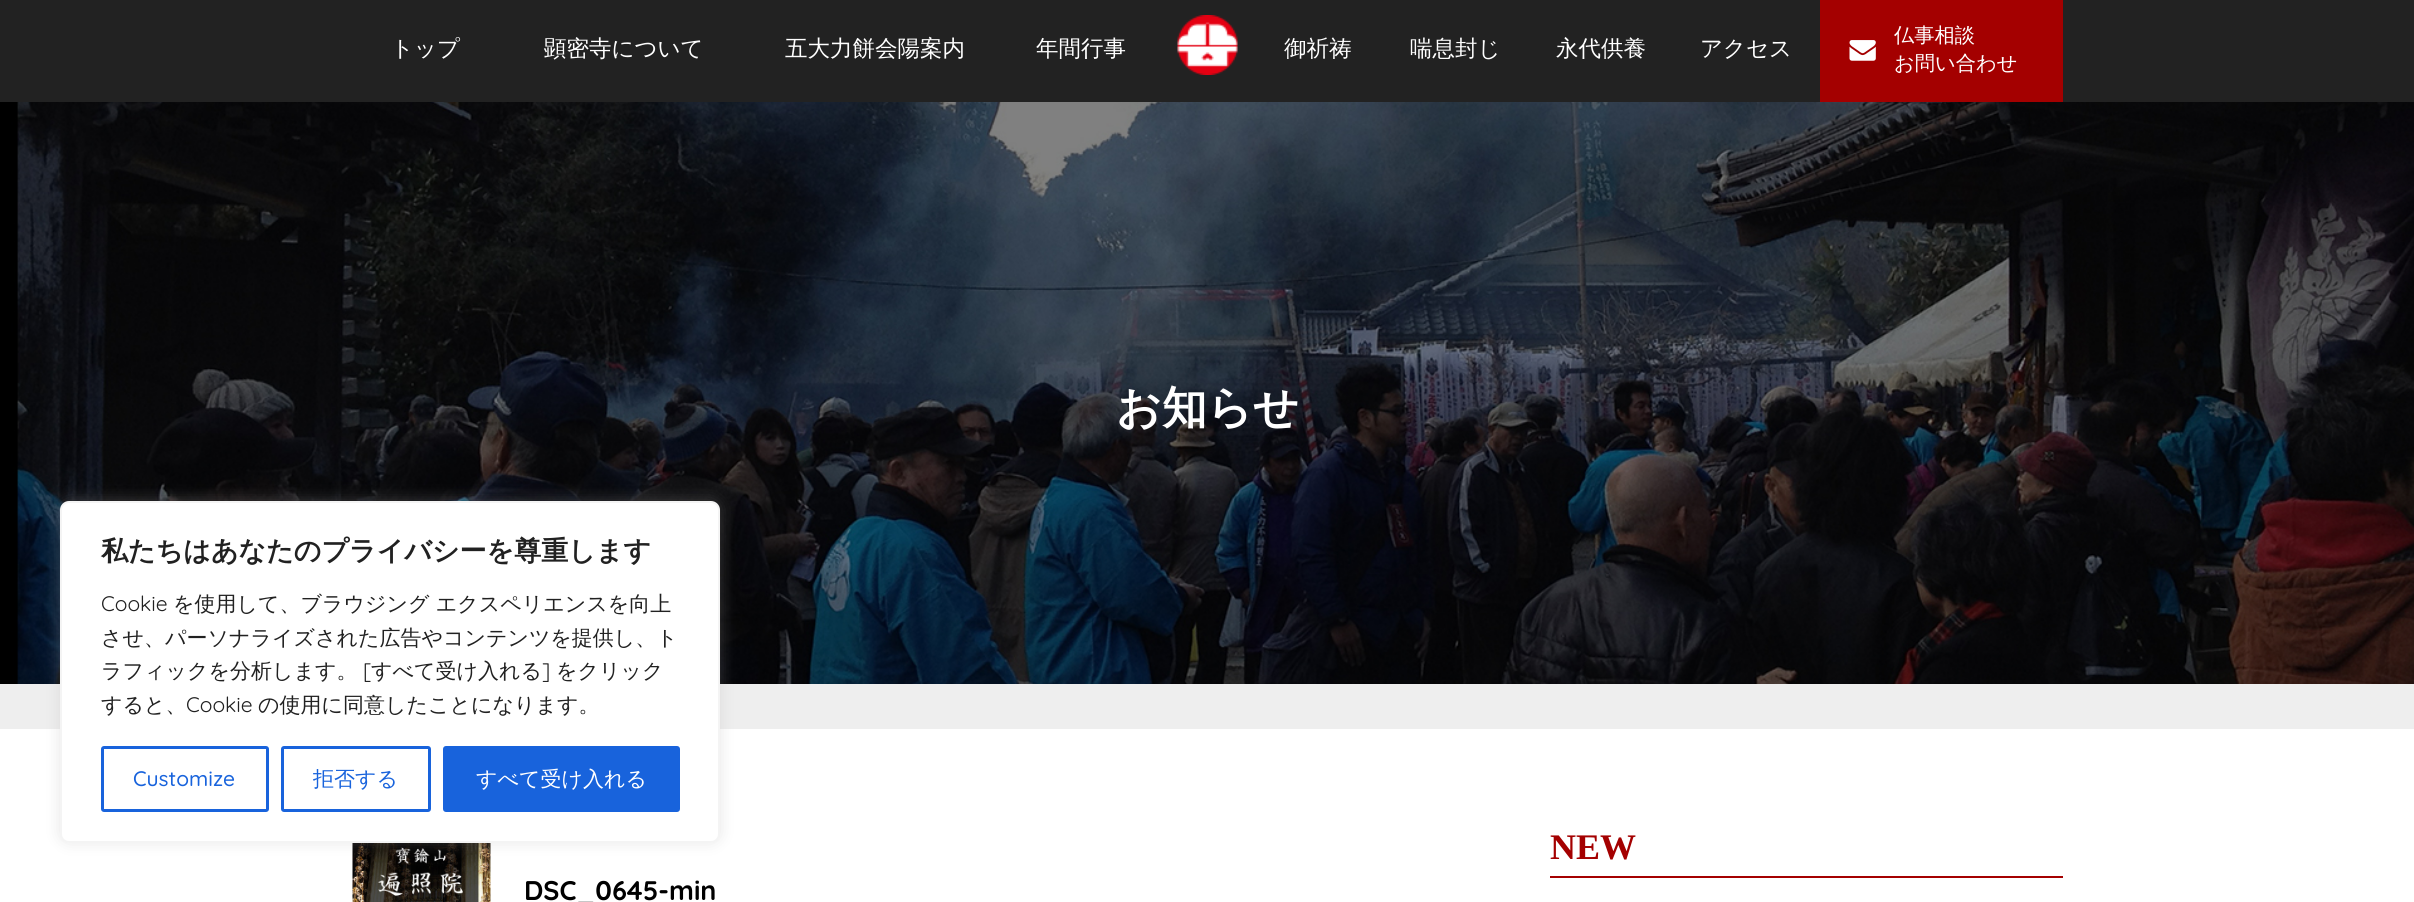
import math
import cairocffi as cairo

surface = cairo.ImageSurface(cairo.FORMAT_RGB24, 2414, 902)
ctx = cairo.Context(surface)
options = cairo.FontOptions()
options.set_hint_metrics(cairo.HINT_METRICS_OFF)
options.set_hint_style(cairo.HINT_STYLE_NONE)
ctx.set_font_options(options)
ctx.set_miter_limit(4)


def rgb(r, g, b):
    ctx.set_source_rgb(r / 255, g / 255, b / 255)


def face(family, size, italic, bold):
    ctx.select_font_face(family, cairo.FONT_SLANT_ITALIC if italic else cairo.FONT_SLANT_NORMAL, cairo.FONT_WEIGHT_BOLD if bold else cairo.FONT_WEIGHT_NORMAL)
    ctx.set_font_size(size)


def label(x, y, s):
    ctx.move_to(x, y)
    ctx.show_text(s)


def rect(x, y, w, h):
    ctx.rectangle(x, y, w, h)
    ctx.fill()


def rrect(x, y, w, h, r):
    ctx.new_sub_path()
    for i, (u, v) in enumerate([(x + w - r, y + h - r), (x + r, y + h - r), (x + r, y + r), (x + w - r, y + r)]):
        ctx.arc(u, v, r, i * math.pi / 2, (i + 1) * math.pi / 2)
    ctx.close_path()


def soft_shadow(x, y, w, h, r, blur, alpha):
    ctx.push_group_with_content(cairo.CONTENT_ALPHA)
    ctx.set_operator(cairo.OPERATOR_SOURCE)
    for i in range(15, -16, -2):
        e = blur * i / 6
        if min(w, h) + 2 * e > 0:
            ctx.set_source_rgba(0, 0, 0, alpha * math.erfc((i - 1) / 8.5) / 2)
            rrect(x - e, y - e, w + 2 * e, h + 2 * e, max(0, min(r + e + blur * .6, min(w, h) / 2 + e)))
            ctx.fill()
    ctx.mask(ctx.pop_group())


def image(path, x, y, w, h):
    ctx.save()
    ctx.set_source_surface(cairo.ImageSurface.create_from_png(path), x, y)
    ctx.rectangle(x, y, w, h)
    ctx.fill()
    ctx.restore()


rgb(255, 255, 255)
ctx.paint()
image('image2.png', 0, 102, 2414, 582)
rgb(238, 238, 238)
rect(0, 684, 2414, 45)
image('image3.png', 352, 843, 139, 59)
rgb(172, 171, 171)
soft_shadow(60, 500, 660, 342, 9, 7.5, 0.3)
rgb(255, 255, 255)
rrect(61, 502, 658, 340, 8)
ctx.fill_preserve()
rgb(244, 244, 244)
ctx.stroke()
face('WenQuanYi Zen Hei', 27, 0, 1)
rgb(33, 33, 33)
label(101, 560, '私たちはあなたのプライバシーを尊重します')
face('Quicksand', 21, 0, 0)
label(101, 611, 'Cookie')
face('WenQuanYi Zen Hei Medium', 21, 0, 0)
label(173, 611, 'を使用して、ブラウジング エクスペリエンスを向上')
label(101, 645, 'させ、パーソナライズされた広告やコンテンツを提供し、ト')
label(101, 678, 'ラフィックを分析します。')
face('Quicksand', 21, 0, 0)
label(363, 678, '[')
face('WenQuanYi Zen Hei Medium', 21, 0, 0)
label(371, 678, 'すべて受け入れる')
face('Quicksand', 21, 0, 0)
label(542, 678, ']')
face('WenQuanYi Zen Hei Medium', 21, 0, 0)
label(556, 678, 'をクリック')
label(101, 712, 'すると、')
face('Quicksand', 21, 0, 0)
label(186, 712, 'Cookie')
face('WenQuanYi Zen Hei Medium', 21, 0, 0)
label(258, 712, 'の使用に同意したことになります。')
rrect(102.5, 747.5, 165, 63, 1.5)
rgb(24, 99, 220)
ctx.set_line_width(3)
ctx.stroke()
face('Quicksand Medium', 21, 0, 0)
label(133, 786, 'Customize')
rrect(282.5, 747.5, 147, 63, 1.5)
ctx.stroke()
face('WenQuanYi Zen Hei Medium', 21, 0, 0)
label(313, 786, '拒否する')
rrect(444.5, 747.5, 234, 63, 1.5)
ctx.fill_preserve()
ctx.stroke()
rgb(255, 255, 255)
label(476, 786, 'すべて受け入れる')
rgb(34, 34, 34)
rect(0, 0, 2414, 102)
face('WenQuanYi Zen Hei Medium', 22.5, 0, 0)
rgb(255, 255, 255)
label(391, 56, 'トップ')
label(544, 56, '顕密寺について')
label(785, 56, '五大力餅会陽案内')
label(1036, 56, '年間行事')
image('image0.png', 1177, 15, 61, 60)
label(1284, 56, '御祈祷')
label(1410, 56, '喘息封じ')
label(1556, 56, '永代供養')
label(1700, 56, 'アクセス')
rgb(164, 0, 0)
rect(1820, 0, 243, 102)
face('WenQuanYi Zen Hei Medium', 20.25, 0, 0)
rgb(255, 255, 255)
label(1894, 42, '仏事相談')
image('image1.png', 1849, 40, 27, 21)
label(1894, 70, 'お問い合わせ')
face('WenQuanYi Zen Hei', 45, 0, 1)
label(1116, 423, 'お知らせ')
rgb(164, 0, 0)
rect(1550, 876, 513, 2)
face('Liberation Serif', 36, 0, 1)
label(1550, 859, 'NEW')
face('Quicksand', 27, 0, 1)
rgb(0, 0, 0)
label(524, 900, 'DSC_0645-min')
surface.write_to_png('render.png')
